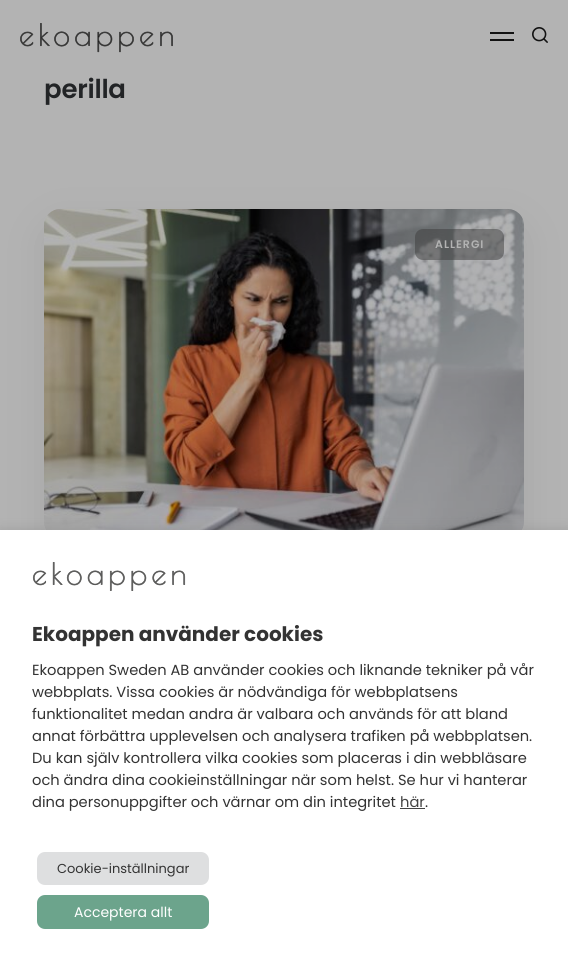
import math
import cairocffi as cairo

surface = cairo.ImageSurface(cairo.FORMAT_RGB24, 568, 966)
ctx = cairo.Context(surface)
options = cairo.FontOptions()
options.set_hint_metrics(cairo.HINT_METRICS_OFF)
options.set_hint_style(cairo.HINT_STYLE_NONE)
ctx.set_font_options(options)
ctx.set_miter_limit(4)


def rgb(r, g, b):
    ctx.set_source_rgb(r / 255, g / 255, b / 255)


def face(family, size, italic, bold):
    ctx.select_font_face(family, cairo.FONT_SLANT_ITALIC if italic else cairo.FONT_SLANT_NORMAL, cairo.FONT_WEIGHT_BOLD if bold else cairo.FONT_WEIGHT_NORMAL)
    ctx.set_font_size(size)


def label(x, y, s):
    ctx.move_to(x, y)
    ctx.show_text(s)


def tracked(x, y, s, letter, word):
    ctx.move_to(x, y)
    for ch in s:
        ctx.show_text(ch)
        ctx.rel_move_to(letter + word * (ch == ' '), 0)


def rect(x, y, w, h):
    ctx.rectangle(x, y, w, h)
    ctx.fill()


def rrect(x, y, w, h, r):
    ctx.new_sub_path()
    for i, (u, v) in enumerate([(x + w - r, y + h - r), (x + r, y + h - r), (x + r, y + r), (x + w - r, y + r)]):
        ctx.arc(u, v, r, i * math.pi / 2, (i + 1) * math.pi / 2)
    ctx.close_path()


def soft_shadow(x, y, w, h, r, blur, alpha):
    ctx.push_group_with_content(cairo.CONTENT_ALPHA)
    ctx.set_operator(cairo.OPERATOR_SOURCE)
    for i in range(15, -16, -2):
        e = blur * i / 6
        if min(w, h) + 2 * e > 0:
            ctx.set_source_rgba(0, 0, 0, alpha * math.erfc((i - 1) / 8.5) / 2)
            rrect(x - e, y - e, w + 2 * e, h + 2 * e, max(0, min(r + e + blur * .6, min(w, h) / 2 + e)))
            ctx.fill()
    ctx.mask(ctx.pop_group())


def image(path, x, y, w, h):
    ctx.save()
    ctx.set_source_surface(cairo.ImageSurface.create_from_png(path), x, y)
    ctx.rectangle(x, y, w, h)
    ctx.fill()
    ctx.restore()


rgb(179, 179, 179)
ctx.paint()
image('image0.png', 20, 23, 153, 30)
rgb(18, 18, 18)
rect(490, 32, 24, 2)
rect(490, 39, 24, 2)
image('image1.png', 532, 27, 16, 16)
face('Poppins SemiBold', 26, 0, 0)
rgb(34, 36, 38)
tracked(44, 98, 'perilla', -0.25, 0)
rgb(33, 33, 33)
soft_shadow(44, 224, 480, 329, 16, 20, 0.1)
image('image2.png', 44, 209, 480, 321)
ctx.set_source_rgba(0.239, 0.239, 0.235, 0.5)
rrect(415, 229, 89, 31, 8)
ctx.fill()
face('Poppins SemiBold', 11, 0, 0)
rgb(179, 179, 179)
tracked(435, 248, 'ALLERGI', 1, 0)
rgb(120, 120, 120)
soft_shadow(0, 529, 568, 436, 0, 5, 0.3)
rgb(255, 255, 255)
rect(0, 530, 568, 436)
image('image3.png', 32, 562, 154, 29)
face('Poppins', 20, 0, 1)
rgb(51, 51, 51)
label(32, 641, 'Ekoappen använder cookies')
face('Poppins', 14.65, 0, 0)
label(32, 675, 'Ekoappen Sweden AB använder cookies och liknande tekniker på vår')
label(32, 697, 'webbplats. Vissa cookies är nödvändiga för webbplatsens')
label(32, 719, 'funktionalitet medan andra är valbara och används för att bland')
label(32, 741, 'annat förbättra upplevelsen och analysera trafiken på webbplatsen.')
label(32, 763, 'Du kan själv kontrollera vilka cookies som placeras i din webbläsare')
label(32, 785, 'och ändra dina cookieinställningar när som helst. Se hur vi hanterar')
label(32, 807, 'dina personuppgifter och värnar om din integritet')
rgb(68, 68, 68)
label(400, 807, 'här')
rect(400, 808, 25, 1)
rgb(51, 51, 51)
label(425, 807, '.')
rgb(222, 223, 224)
rrect(37, 852, 172, 33, 8)
ctx.fill()
face('Poppins', 13, 0, 0)
rgb(51, 51, 51)
label(57, 873, 'Cookie-inställningar')
rgb(108, 164, 140)
rrect(37, 895, 172, 34, 8)
ctx.fill()
face('Poppins', 14, 0, 0)
rgb(255, 255, 255)
label(74, 917, 'Acceptera allt')
surface.write_to_png('render.png')
